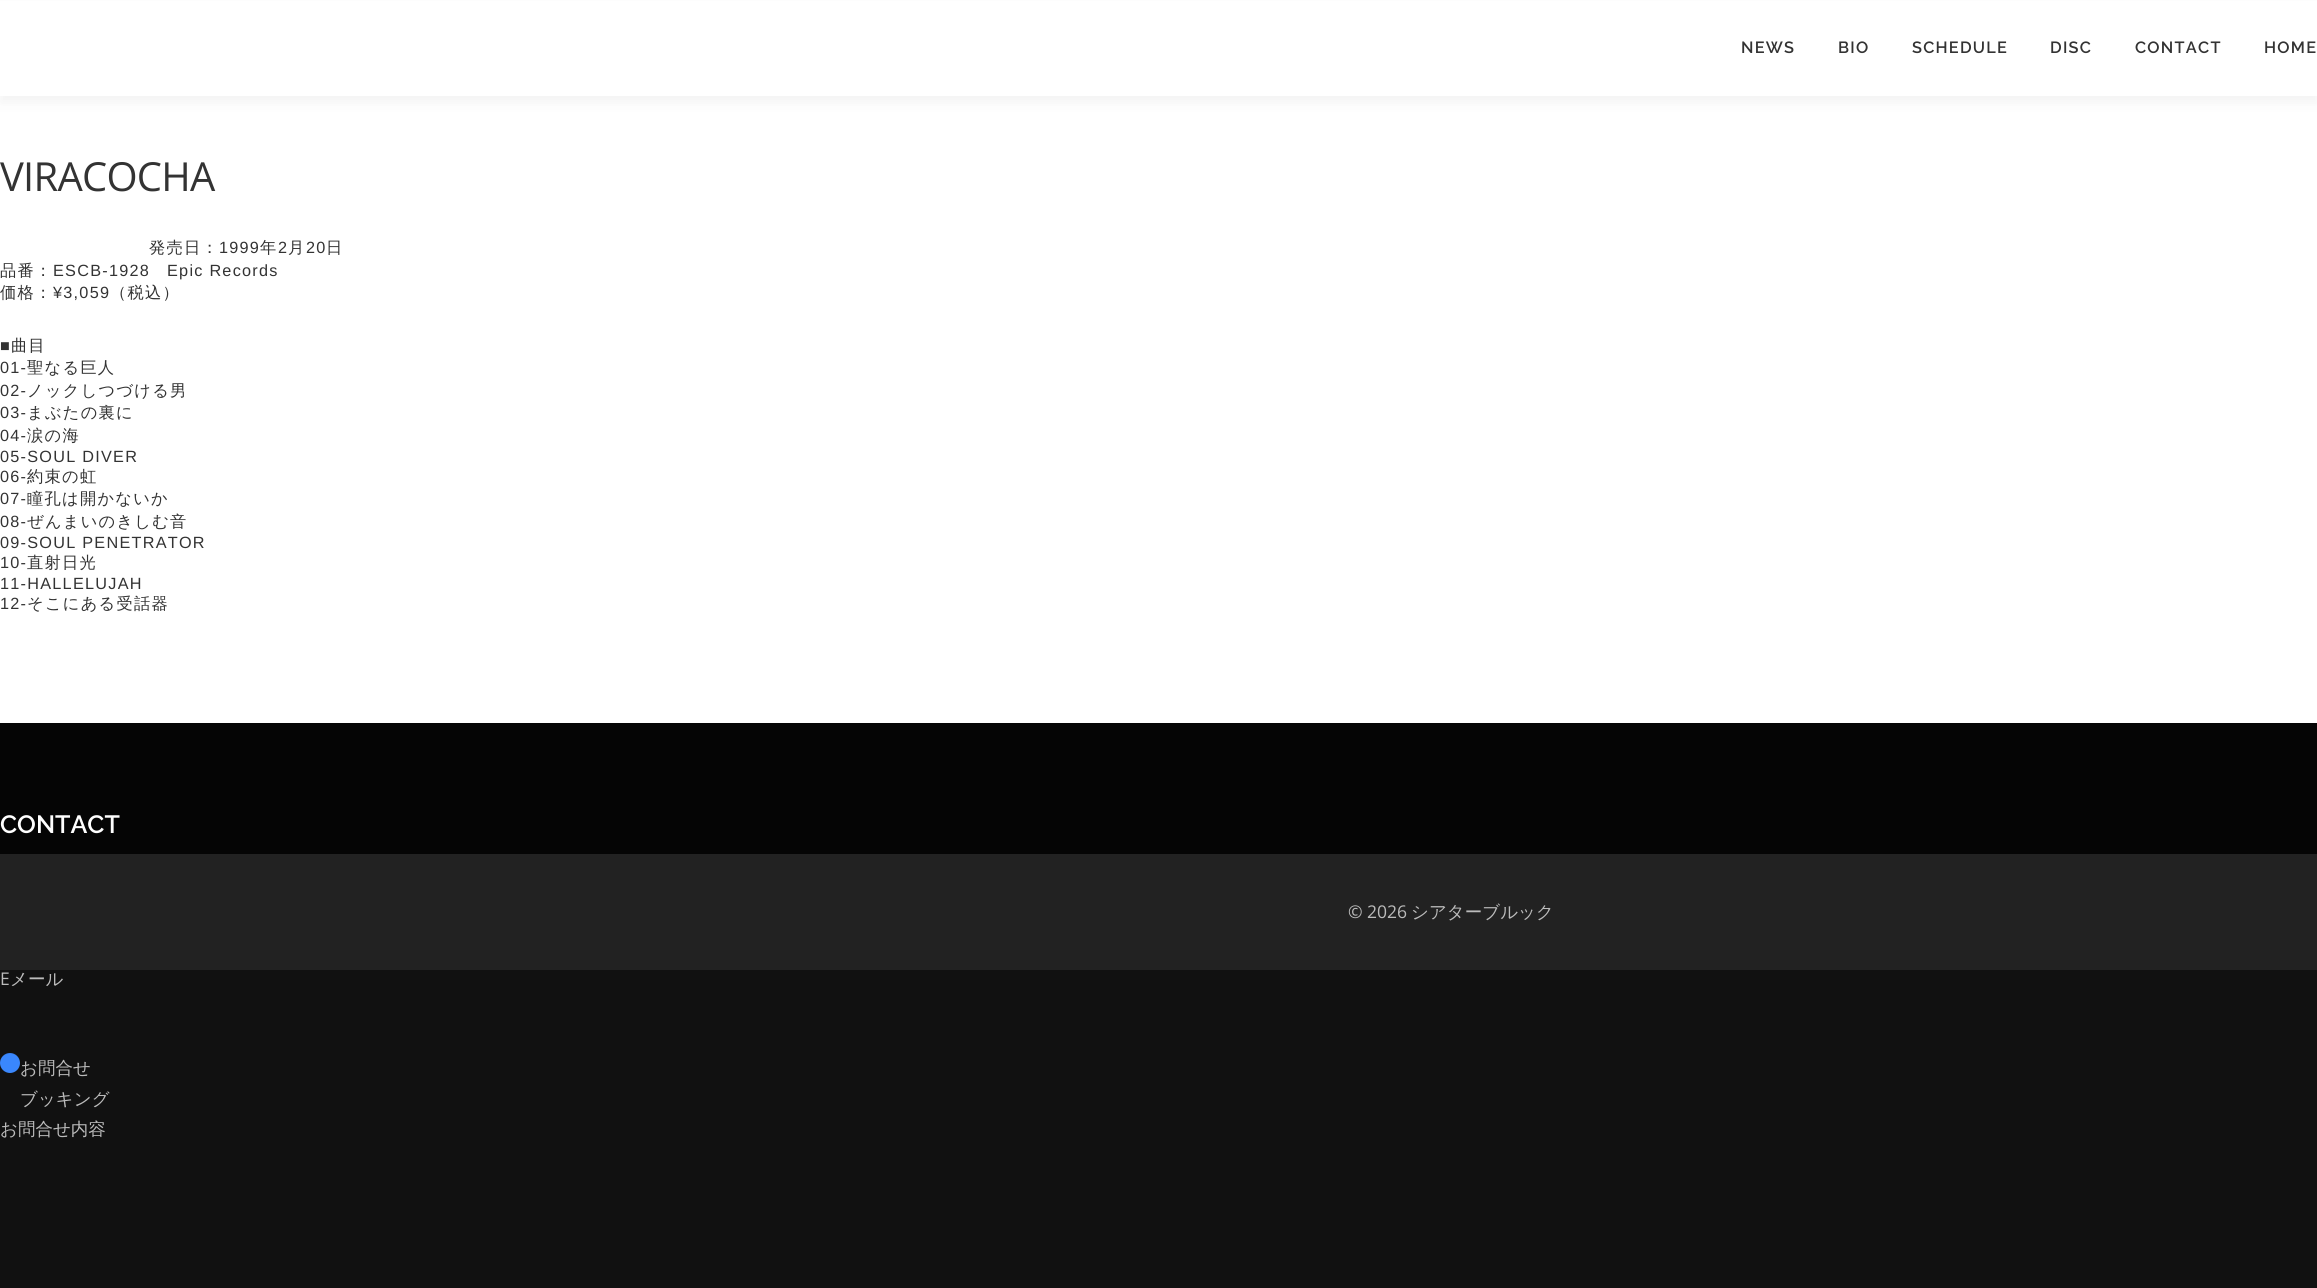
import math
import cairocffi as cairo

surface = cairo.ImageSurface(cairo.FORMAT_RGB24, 2317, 1288)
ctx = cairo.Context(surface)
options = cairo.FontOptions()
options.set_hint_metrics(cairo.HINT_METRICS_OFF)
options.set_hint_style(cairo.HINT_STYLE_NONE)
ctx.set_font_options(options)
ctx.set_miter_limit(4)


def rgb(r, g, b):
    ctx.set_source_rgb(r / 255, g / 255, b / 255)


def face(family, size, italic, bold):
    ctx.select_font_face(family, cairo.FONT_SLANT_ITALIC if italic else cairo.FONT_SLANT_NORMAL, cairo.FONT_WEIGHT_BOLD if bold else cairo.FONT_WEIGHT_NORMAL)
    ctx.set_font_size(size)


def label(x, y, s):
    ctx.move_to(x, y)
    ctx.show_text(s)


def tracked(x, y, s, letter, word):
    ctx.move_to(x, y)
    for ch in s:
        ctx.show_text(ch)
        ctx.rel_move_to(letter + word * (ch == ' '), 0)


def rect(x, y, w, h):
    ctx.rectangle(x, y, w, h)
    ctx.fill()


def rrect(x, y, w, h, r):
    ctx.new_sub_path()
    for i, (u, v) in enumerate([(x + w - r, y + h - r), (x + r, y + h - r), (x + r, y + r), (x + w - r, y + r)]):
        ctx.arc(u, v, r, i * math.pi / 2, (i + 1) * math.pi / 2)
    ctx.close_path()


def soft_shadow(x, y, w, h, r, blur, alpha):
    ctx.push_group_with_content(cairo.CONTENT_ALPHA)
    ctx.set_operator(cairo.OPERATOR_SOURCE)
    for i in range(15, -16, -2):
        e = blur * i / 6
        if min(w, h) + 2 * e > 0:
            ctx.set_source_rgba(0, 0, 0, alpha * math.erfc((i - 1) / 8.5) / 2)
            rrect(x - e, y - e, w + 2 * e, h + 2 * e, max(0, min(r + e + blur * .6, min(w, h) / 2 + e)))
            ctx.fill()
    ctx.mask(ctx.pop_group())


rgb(255, 255, 255)
ctx.paint()
rgb(50, 50, 50)
soft_shadow(0, 6, 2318, 97, 0, 6, 0.06)
rgb(255, 255, 255)
rect(0, 1, 2317, 95)
face('Raleway SemiBold', 16.25, 0, 0)
rgb(51, 51, 51)
tracked(1741, 53, 'NEWS', 1.25, 0)
tracked(1838, 53, 'BIO', 1.25, 0)
tracked(1912, 53, 'SCHEDULE', 1.25, 0)
tracked(2050, 53, 'DISC', 1.25, 0)
tracked(2135, 53, 'CONTACT', 1.25, 0)
tracked(2264, 53, 'HOME', 1.25, 0)
face('Open Sans', 40, 0, 0)
tracked(0, 191, 'VIRACOCHA', -0.75, 0)
face('WenQuanYi Zen Hei Medium', 16.25, 0, 0)
tracked(149, 253, '発売日：', 1.25, 0)
face('Liberation Sans', 16.25, 0, 0)
tracked(219, 253, '1999', 1.25, 0)
face('WenQuanYi Zen Hei Medium', 16.25, 0, 0)
tracked(260, 253, '年', 1.25, 0)
face('Liberation Sans', 16.25, 0, 0)
tracked(278, 253, '2', 1.25, 0)
face('WenQuanYi Zen Hei Medium', 16.25, 0, 0)
tracked(288, 253, '月', 1.25, 0)
face('Liberation Sans', 16.25, 0, 0)
tracked(306, 253, '20', 1.25, 0)
face('WenQuanYi Zen Hei Medium', 16.25, 0, 0)
tracked(326, 253, '日', 1.25, 0)
tracked(0, 276, '品番：', 1.25, 0)
face('Liberation Sans', 16.25, 0, 0)
tracked(53, 276, 'ESCB-1928', 1.25, 0)
tracked(167, 276, 'Epic Records', 1.25, 0)
face('WenQuanYi Zen Hei Medium', 16.25, 0, 0)
tracked(0, 298, '価格：', 1.25, 0)
face('Liberation Sans', 16.25, 0, 0)
tracked(53, 298, '¥3,059', 1.25, 0)
face('WenQuanYi Zen Hei Medium', 16.25, 0, 0)
tracked(110, 298, '（税込）', 1.25, 0)
face('Liberation Serif', 16.25, 0, 0)
tracked(0, 351, '■', 1.25, 0)
face('WenQuanYi Zen Hei Medium', 16.25, 0, 0)
tracked(11, 351, '曲目', 1.25, 0)
face('Liberation Sans', 16.25, 0, 0)
tracked(0, 373, '01-', 1.25, 0)
face('WenQuanYi Zen Hei Medium', 16.25, 0, 0)
tracked(27, 373, '聖なる巨人', 1.25, 0)
face('Liberation Sans', 16.25, 0, 0)
tracked(0, 396, '02-', 1.25, 0)
face('WenQuanYi Zen Hei Medium', 16.25, 0, 0)
tracked(27, 396, 'ノックしつづける男', 1.25, 0)
face('Liberation Sans', 16.25, 0, 0)
tracked(0, 418, '03-', 1.25, 0)
face('WenQuanYi Zen Hei Medium', 16.25, 0, 0)
tracked(27, 418, 'まぶたの裏に', 1.25, 0)
face('Liberation Sans', 16.25, 0, 0)
tracked(0, 441, '04-', 1.25, 0)
face('WenQuanYi Zen Hei Medium', 16.25, 0, 0)
tracked(27, 441, '涙の海', 1.25, 0)
face('Liberation Sans', 16.25, 0, 0)
tracked(0, 462, '05-SOUL DIVER', 1.25, 0)
tracked(0, 482, '06-', 1.25, 0)
face('WenQuanYi Zen Hei Medium', 16.25, 0, 0)
tracked(27, 482, '約束の虹', 1.25, 0)
face('Liberation Sans', 16.25, 0, 0)
tracked(0, 504, '07-', 1.25, 0)
face('WenQuanYi Zen Hei Medium', 16.25, 0, 0)
tracked(27, 504, '瞳孔は開かないか', 1.25, 0)
face('Liberation Sans', 16.25, 0, 0)
tracked(0, 527, '08-', 1.25, 0)
face('WenQuanYi Zen Hei Medium', 16.25, 0, 0)
tracked(27, 527, 'ぜんまいのきしむ音', 1.25, 0)
face('Liberation Sans', 16.25, 0, 0)
tracked(0, 548, '09-SOUL PENETRATOR', 1.25, 0)
tracked(0, 568, '10-', 1.25, 0)
face('WenQuanYi Zen Hei Medium', 16.25, 0, 0)
tracked(27, 568, '直射日光', 1.25, 0)
face('Liberation Sans', 16.25, 0, 0)
tracked(0, 589, '11-HALLELUJAH', 1.25, 0)
tracked(0, 609, '12-', 1.25, 0)
face('WenQuanYi Zen Hei Medium', 16.25, 0, 0)
tracked(27, 609, 'そこにある受話器', 1.25, 0)
rgb(17, 17, 17)
rect(0, 970, 2317, 318)
rgb(5, 5, 5)
rect(0, 723, 2317, 131)
face('Raleway SemiBold', 25, 0, 0)
rgb(255, 255, 255)
label(0, 833, 'CONTACT')
face('Open Sans', 17.5, 0, 0)
rgb(187, 187, 187)
label(0, 985, 'E')
face('WenQuanYi Zen Hei Medium', 17.5, 0, 0)
label(10, 985, 'メール')
rgb(58, 135, 253)
ctx.new_path()
ctx.arc(10, 1063, 10, 0, 2 * math.pi)
ctx.fill()
ctx.set_source_rgba(0, 0, 0, 0.04)
ctx.new_path()
ctx.move_to(10, 1054)
ctx.curve_to(17.5, 1054, 20.5, 1060, 19.5, 1066)
ctx.curve_to(20, 1063.5, 20, 1061, 19, 1059)
ctx.curve_to(14.5, 1047.5, -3, 1054, 0.5, 1066)
ctx.curve_to(-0.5, 1060, 2.5, 1054, 10, 1054)
ctx.close_path()
ctx.fill()
rgb(187, 187, 187)
label(20, 1074, 'お問合せ')
label(20, 1105, 'ブッキング')
label(0, 1135, 'お問合せ内容')
rgb(34, 34, 34)
rect(0, 854, 2317, 116)
face('Open Sans', 17.5, 0, 0)
rgb(187, 187, 187)
label(1348, 918, '© 2026')
face('WenQuanYi Zen Hei Medium', 17.5, 0, 0)
label(1411, 918, 'シアターブルック')
surface.write_to_png('render.png')
